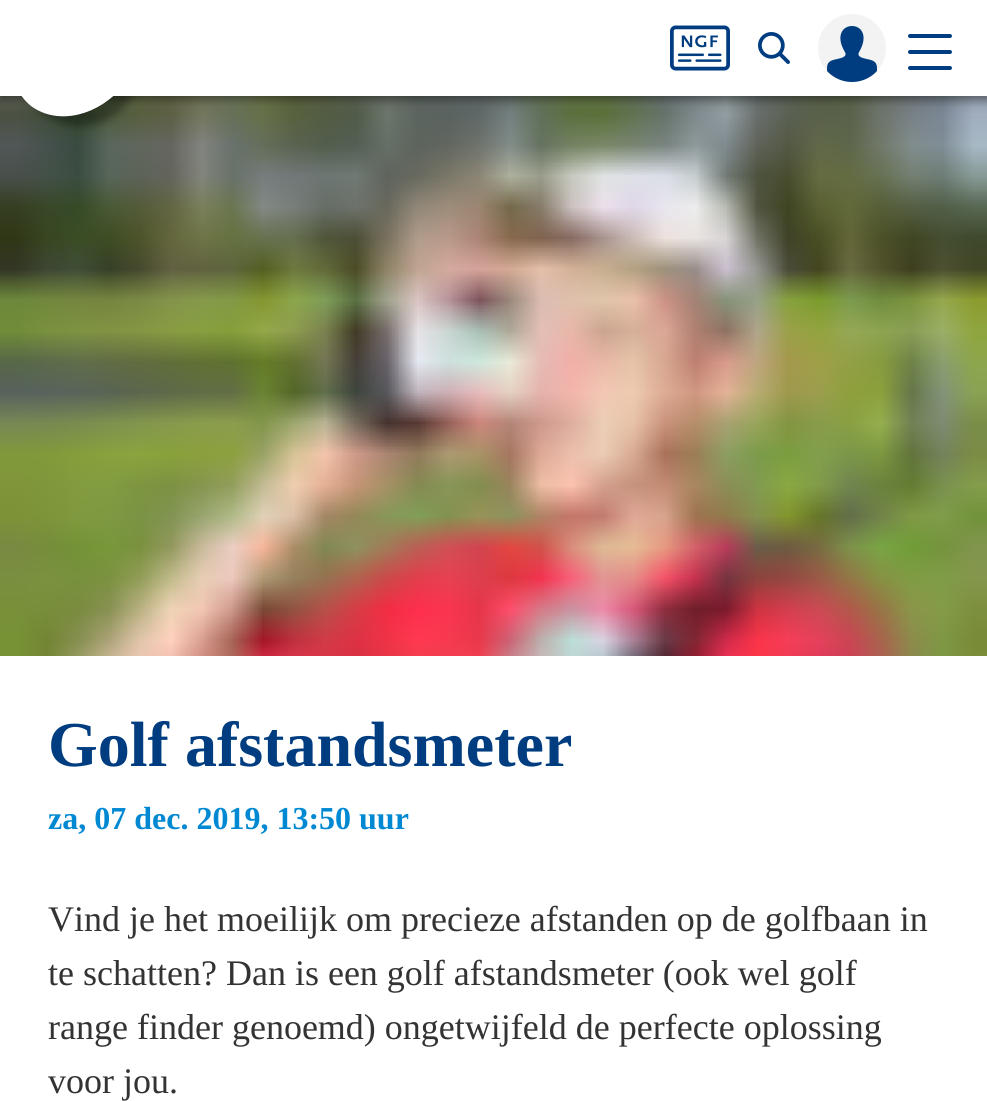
import math
import cairocffi as cairo

surface = cairo.ImageSurface(cairo.FORMAT_RGB24, 987, 1101)
ctx = cairo.Context(surface)
options = cairo.FontOptions()
options.set_hint_metrics(cairo.HINT_METRICS_OFF)
options.set_hint_style(cairo.HINT_STYLE_NONE)
ctx.set_font_options(options)
ctx.set_miter_limit(4)


def rgb(r, g, b):
    ctx.set_source_rgb(r / 255, g / 255, b / 255)


def face(family, size, italic, bold):
    ctx.select_font_face(family, cairo.FONT_SLANT_ITALIC if italic else cairo.FONT_SLANT_NORMAL, cairo.FONT_WEIGHT_BOLD if bold else cairo.FONT_WEIGHT_NORMAL)
    ctx.set_font_size(size)


def label(x, y, s):
    ctx.move_to(x, y)
    ctx.show_text(s)


def rect(x, y, w, h):
    ctx.rectangle(x, y, w, h)
    ctx.fill()


def rrect(x, y, w, h, r):
    ctx.new_sub_path()
    for i, (u, v) in enumerate([(x + w - r, y + h - r), (x + r, y + h - r), (x + r, y + r), (x + w - r, y + r)]):
        ctx.arc(u, v, r, i * math.pi / 2, (i + 1) * math.pi / 2)
    ctx.close_path()


def soft_shadow(x, y, w, h, r, blur, alpha):
    ctx.push_group_with_content(cairo.CONTENT_ALPHA)
    ctx.set_operator(cairo.OPERATOR_SOURCE)
    for i in range(15, -16, -2):
        e = blur * i / 6
        if min(w, h) + 2 * e > 0:
            ctx.set_source_rgba(0, 0, 0, alpha * math.erfc((i - 1) / 8.5) / 2)
            rrect(x - e, y - e, w + 2 * e, h + 2 * e, max(0, min(r + e + blur * .6, min(w, h) / 2 + e)))
            ctx.fill()
    ctx.mask(ctx.pop_group())


def image(path, x, y, w, h):
    ctx.save()
    ctx.set_source_surface(cairo.ImageSurface.create_from_png(path), x, y)
    ctx.rectangle(x, y, w, h)
    ctx.fill()
    ctx.restore()


rgb(255, 255, 255)
ctx.paint()
image('image3.png', 0, 96, 987, 560)
ctx.save()
ctx.rectangle(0, 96, 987, 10)
ctx.clip()
rgb(0, 0, 0)
soft_shadow(0, 4, 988, 96, 0, 4, 0.35)
ctx.restore()
rgb(0, 0, 0)
soft_shadow(20, -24, 120, 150, 60, 4, 0.35)
rgb(255, 255, 255)
ctx.new_path()
ctx.move_to(124, -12)
ctx.curve_to(150, 8, 150, 51, 125, 84)
ctx.curve_to(99, 116, 58, 126, 31, 106)
ctx.curve_to(5, 85, 5, 42, 30, 10)
ctx.curve_to(56, -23, 98, -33, 124, -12)
ctx.close_path()
ctx.fill()
rect(12, 0, 136, 96)
image('image0.png', 670, 25, 60, 46)
image('image1.png', 758, 32, 32, 32)
rgb(243, 243, 243)
ctx.arc(852, 48, 34, 0, 2 * math.pi)
ctx.fill()
image('image2.png', 827, 26, 50, 56)
rgb(0, 61, 128)
rrect(908, 34, 44, 4, 2)
ctx.fill()
rrect(908, 50, 44, 4, 2)
ctx.fill()
rrect(908, 66, 44, 4, 2)
ctx.fill()
face('Liberation Serif', 64, 0, 1)
label(48, 766, 'Golf afstandsmeter')
face('Liberation Serif', 32, 0, 1)
rgb(0, 137, 210)
label(48, 829, 'za, 07 dec. 2019, 13:50 uur')
face('Liberation Serif', 36, 0, 0)
rgb(51, 51, 51)
label(48, 931, 'Vind je het moeilijk om precieze afstanden op de golfbaan in')
label(48, 985, 'te schatten? Dan is een golf afstandsmeter (ook wel golf')
label(48, 1039, 'range finder genoemd) ongetwijfeld de perfecte oplossing')
label(48, 1093, 'voor jou.')
surface.write_to_png('render.png')
